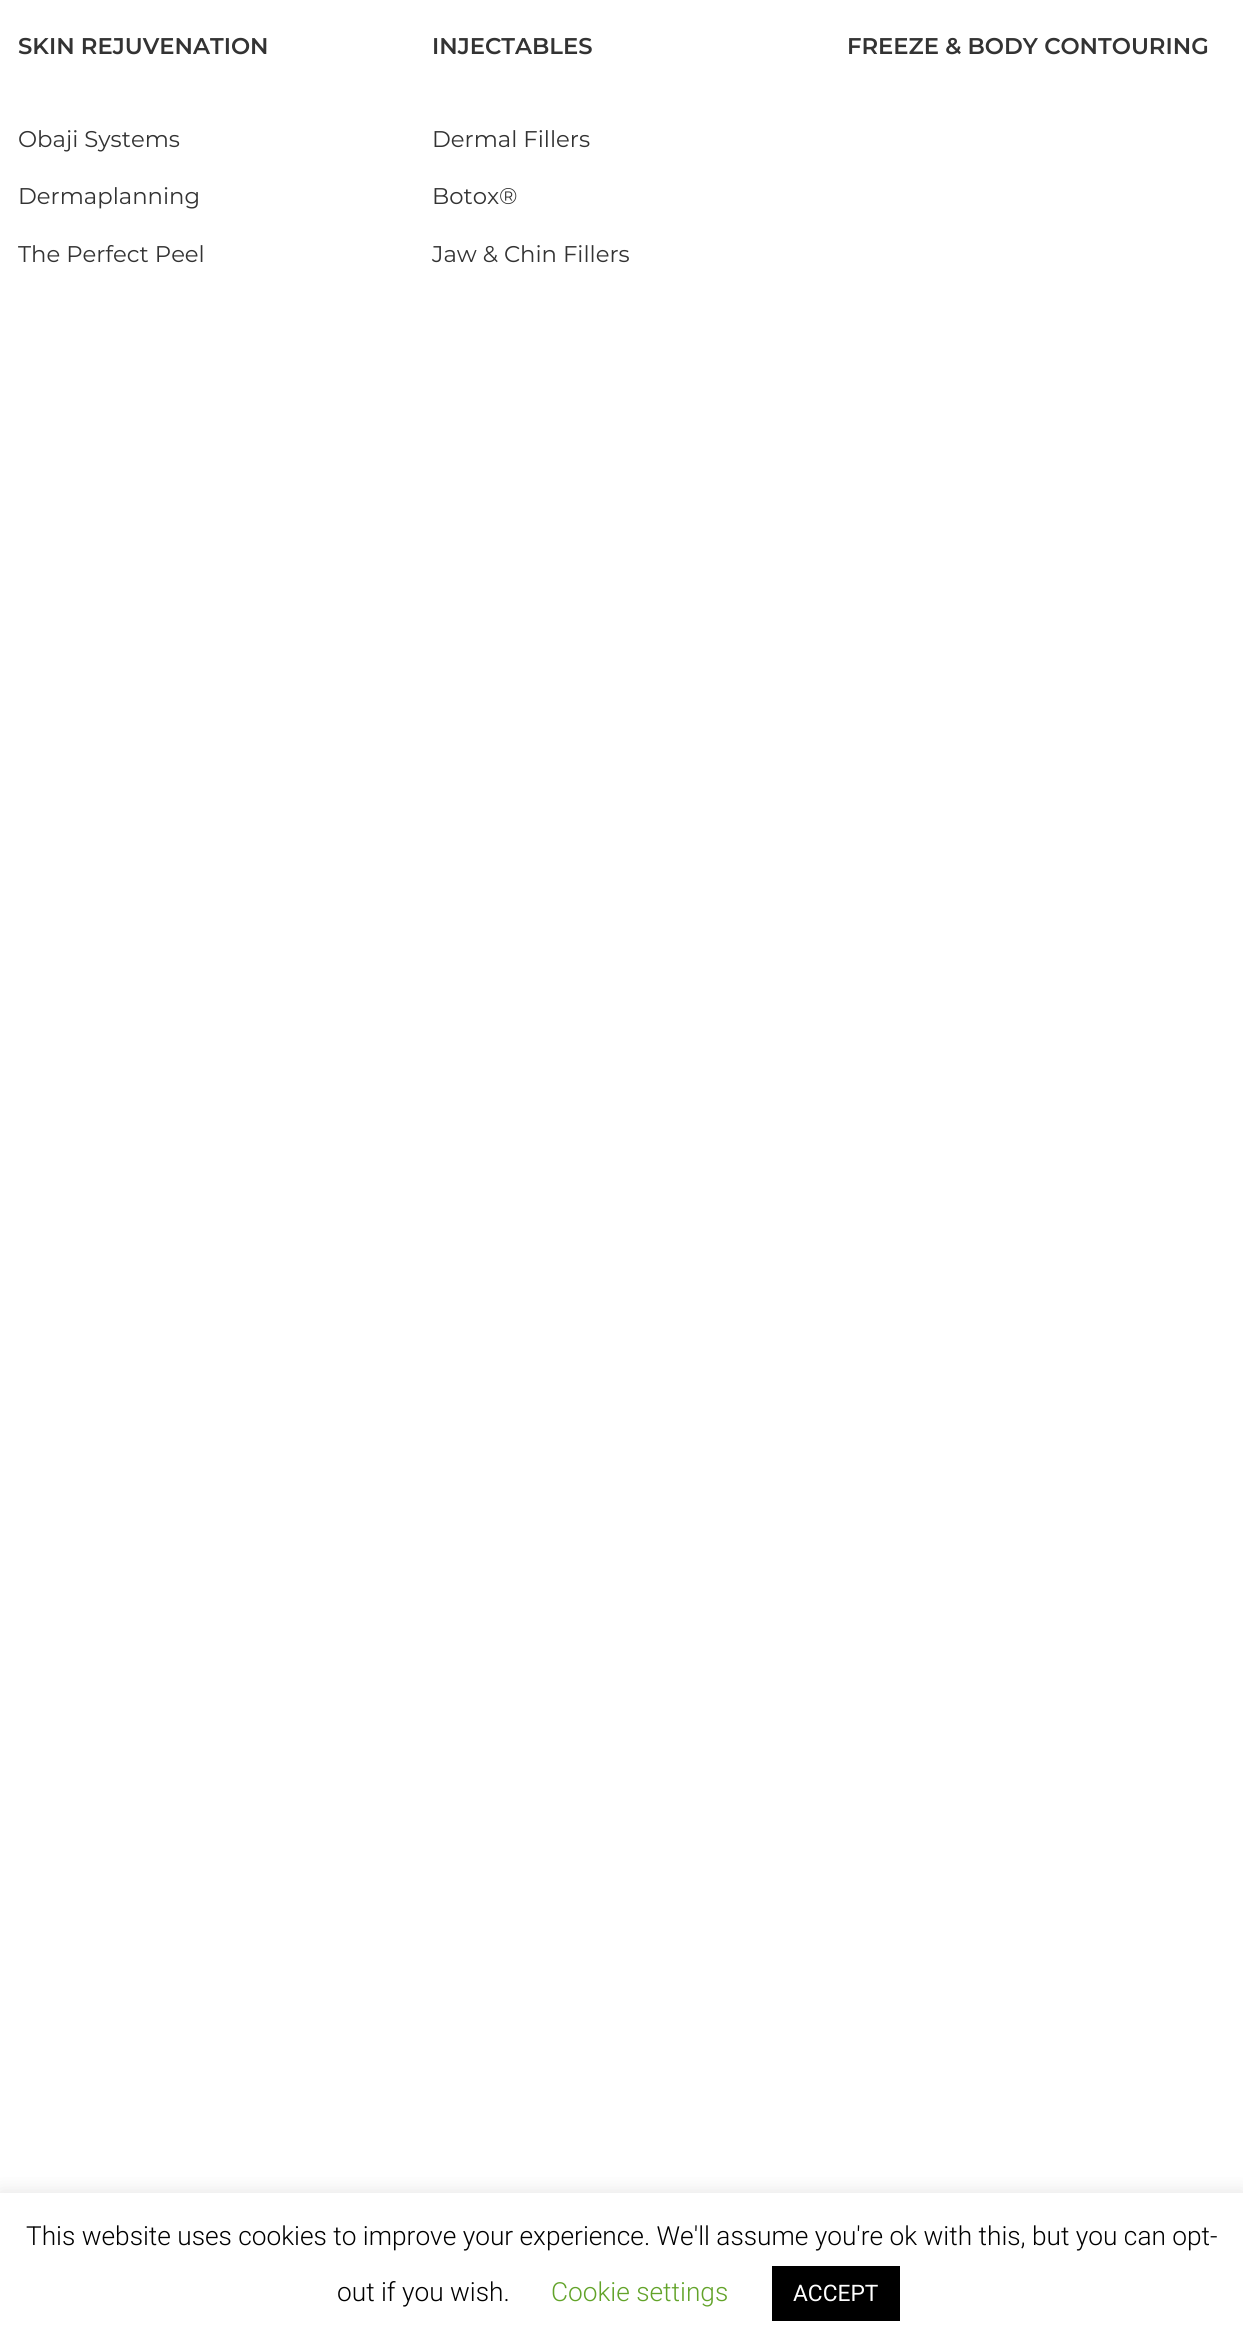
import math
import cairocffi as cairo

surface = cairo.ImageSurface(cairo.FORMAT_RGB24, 1243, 2350)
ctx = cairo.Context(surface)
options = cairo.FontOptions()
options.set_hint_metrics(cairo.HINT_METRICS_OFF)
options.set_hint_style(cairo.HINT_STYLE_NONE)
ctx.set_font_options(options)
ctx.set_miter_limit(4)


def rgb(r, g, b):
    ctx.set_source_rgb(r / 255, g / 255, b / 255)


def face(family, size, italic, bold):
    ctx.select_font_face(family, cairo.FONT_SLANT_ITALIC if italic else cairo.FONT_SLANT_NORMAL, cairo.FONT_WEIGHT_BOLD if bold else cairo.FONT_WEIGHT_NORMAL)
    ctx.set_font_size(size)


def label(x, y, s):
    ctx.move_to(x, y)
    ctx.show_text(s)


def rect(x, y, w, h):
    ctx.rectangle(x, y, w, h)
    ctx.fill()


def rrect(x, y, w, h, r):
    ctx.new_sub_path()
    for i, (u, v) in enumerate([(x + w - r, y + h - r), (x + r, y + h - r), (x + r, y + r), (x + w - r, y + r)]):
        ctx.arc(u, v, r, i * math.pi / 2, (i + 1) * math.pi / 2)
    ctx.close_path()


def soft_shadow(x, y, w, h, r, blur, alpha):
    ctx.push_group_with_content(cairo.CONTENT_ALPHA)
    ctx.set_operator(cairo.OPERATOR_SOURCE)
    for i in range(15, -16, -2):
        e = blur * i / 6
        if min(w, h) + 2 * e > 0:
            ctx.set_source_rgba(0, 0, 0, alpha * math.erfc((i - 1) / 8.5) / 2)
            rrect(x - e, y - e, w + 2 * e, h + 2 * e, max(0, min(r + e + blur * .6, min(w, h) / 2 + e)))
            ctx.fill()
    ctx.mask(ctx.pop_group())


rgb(255, 255, 255)
ctx.paint()
face('Montserrat SemiBold', 22.75, 0, 0)
rgb(51, 51, 51)
label(18, 54, 'SKIN REJUVENATION')
face('Montserrat', 22.75, 0, 0)
label(18, 147, 'Obaji Systems')
label(18, 204, 'Dermaplanning')
label(18, 262, 'The Perfect Peel')
face('Montserrat SemiBold', 22.75, 0, 0)
label(432, 54, 'INJECTABLES')
face('Montserrat', 22.75, 0, 0)
label(432, 147, 'Dermal Fillers')
label(432, 204, 'Botox®')
label(432, 262, 'Jaw & Chin Fillers')
face('Montserrat SemiBold', 22.75, 0, 0)
label(847, 54, 'FREEZE & BODY CONTOURING')
ctx.save()
ctx.rectangle(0, 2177, 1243, 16)
ctx.clip()
rgb(172, 171, 171)
soft_shadow(0, 2191, 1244, 158, 0, 9, 0.3)
ctx.restore()
face('Roboto Light', 26.25, 0, 0)
rgb(0, 0, 0)
label(26, 2245, 'This website uses cookies to improve your experience. We\'ll assume you\'re ok with this, but you can opt-')
label(337, 2301, 'out if you wish.')
rgb(98, 163, 41)
label(551, 2301, 'Cookie settings')
rgb(0, 0, 0)
rect(772, 2266, 128, 55)
face('Roboto', 22.75, 0, 0)
rgb(255, 255, 255)
label(793, 2301, 'ACCEPT')
surface.write_to_png('render.png')
